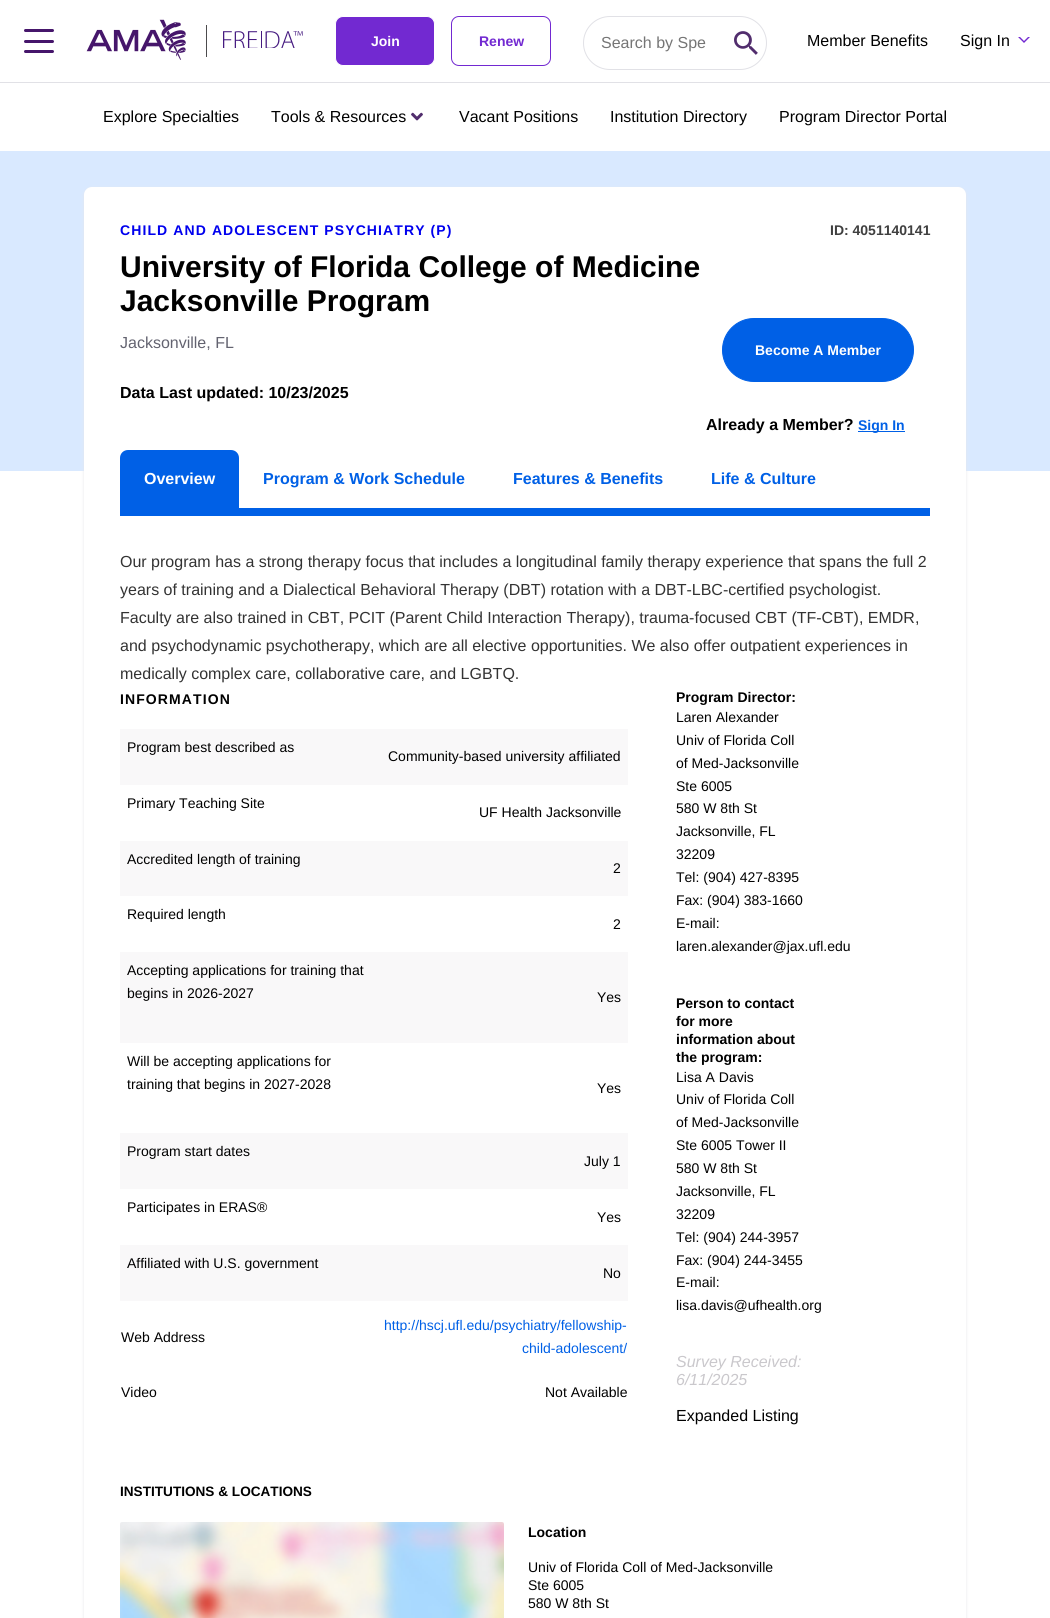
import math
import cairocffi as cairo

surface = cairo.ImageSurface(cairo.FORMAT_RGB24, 1050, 1618)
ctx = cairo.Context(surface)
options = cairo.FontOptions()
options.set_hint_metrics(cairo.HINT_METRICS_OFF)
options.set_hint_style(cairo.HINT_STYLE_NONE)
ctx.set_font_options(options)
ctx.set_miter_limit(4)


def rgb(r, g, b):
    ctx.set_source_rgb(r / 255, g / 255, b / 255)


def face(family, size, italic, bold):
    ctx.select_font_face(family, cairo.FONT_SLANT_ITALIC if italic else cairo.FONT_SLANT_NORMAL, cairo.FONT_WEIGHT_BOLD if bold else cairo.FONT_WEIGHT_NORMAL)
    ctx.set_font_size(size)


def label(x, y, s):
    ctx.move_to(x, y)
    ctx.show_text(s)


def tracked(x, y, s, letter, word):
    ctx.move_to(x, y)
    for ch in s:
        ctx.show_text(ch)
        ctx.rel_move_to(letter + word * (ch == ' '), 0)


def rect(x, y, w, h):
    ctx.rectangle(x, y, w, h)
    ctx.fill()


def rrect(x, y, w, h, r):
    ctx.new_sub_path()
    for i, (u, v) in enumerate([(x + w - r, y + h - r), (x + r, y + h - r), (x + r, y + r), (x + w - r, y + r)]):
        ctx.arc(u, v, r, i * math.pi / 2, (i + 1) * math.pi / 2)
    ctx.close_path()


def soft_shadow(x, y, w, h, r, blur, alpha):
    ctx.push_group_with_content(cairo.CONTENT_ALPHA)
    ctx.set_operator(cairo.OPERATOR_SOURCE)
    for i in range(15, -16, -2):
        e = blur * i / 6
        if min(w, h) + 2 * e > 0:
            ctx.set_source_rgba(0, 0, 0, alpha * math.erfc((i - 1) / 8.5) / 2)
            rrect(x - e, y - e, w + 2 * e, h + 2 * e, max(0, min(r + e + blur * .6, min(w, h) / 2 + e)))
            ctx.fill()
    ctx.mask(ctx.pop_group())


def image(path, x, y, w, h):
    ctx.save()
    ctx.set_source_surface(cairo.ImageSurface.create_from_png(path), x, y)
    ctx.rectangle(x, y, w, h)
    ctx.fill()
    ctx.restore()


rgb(255, 255, 255)
ctx.paint()
rgb(225, 225, 230)
rect(0, 82, 1050, 1)
rgb(70, 22, 107)
rrect(24, 29, 30, 3, 1.5)
ctx.fill()
rrect(24, 40, 30, 3, 1.5)
ctx.fill()
rrect(24, 50, 30, 3, 1.5)
ctx.fill()
image('image0.png', 86, 19, 100, 41)
rgb(76, 75, 77)
rect(206, 25, 1, 32)
image('image1.png', 223, 31, 80, 17)
rgb(114, 41, 209)
rrect(335.5, 16.5, 99, 49, 7.5)
ctx.fill_preserve()
rgb(255, 255, 255)
ctx.set_line_width(1)
ctx.stroke()
face('Liberation Sans', 14, 0, 1)
label(371, 46, 'Join')
rrect(451.5, 16.5, 99, 49, 7.5)
rgb(114, 41, 209)
ctx.stroke()
label(479, 46, 'Renew')
rrect(583.5, 16.5, 183, 53, 26.5)
rgb(225, 225, 230)
ctx.stroke()
face('Liberation Sans', 16, 0, 0)
rgb(117, 117, 117)
label(601, 48, 'Search by Spe')
image('image2.png', 734, 31, 24, 24)
rgb(0, 0, 0)
label(807, 46, 'Member Benefits')
label(960, 46, 'Sign In')
rgb(114, 41, 209)
ctx.new_path()
ctx.move_to(1018, 37)
ctx.line_to(1030, 37)
ctx.line_to(1024, 43)
ctx.close_path()
ctx.fill()
rgb(255, 255, 255)
ctx.new_path()
ctx.move_to(1020, 37)
ctx.line_to(1028, 37)
ctx.line_to(1024, 41)
ctx.close_path()
ctx.fill()
rgb(0, 0, 0)
label(103, 122, 'Explore Specialties')
label(271, 122, 'Tools & Resources')
image('image3.png', 411, 112, 12, 9)
label(459, 122, 'Vacant Positions')
label(610, 122, 'Institution Directory')
label(779, 122, 'Program Director Portal')
rgb(217, 233, 255)
rect(0, 151, 1050, 320)
rgb(232, 230, 235)
soft_shadow(84, 188, 882, 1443, 8, 1.5, 1)
rgb(255, 255, 255)
rrect(84, 187, 882, 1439, 8)
ctx.fill()
face('Liberation Sans', 14, 0, 1)
rgb(0, 0, 238)
tracked(120, 235, 'CHILD AND ADOLESCENT PSYCHIATRY (P)', 1.1, 0)
rgb(64, 64, 64)
label(830, 235, 'ID: 4051140141')
face('Liberation Sans', 30, 0, 1)
rgb(0, 0, 0)
label(120, 277, 'University of Florida College of Medicine')
label(120, 311, 'Jacksonville Program')
face('Liberation Sans', 16, 0, 0)
rgb(99, 99, 112)
label(120, 348, 'Jacksonville, FL')
rgb(0, 96, 230)
rrect(722.5, 318.5, 191, 63, 31.5)
ctx.fill_preserve()
ctx.stroke()
face('Liberation Sans', 14, 0, 1)
rgb(255, 255, 255)
label(755, 355, 'Become A Member')
face('Liberation Sans', 16, 0, 1)
rgb(0, 0, 0)
label(706, 430, 'Already a Member?')
rgb(0, 96, 230)
rect(858, 431, 47, 1)
face('Liberation Sans', 14, 0, 1)
label(858, 430, 'Sign In')
face('Liberation Sans', 16, 0, 1)
rgb(0, 0, 0)
label(120, 398, 'Data Last updated: 10/23/2025')
rgb(0, 96, 230)
rect(120, 508, 810, 8)
ctx.new_path()
ctx.move_to(128, 450)
ctx.line_to(231, 450)
ctx.curve_to(235.5, 450, 239, 453.5, 239, 458)
ctx.line_to(239, 508)
ctx.line_to(120, 508)
ctx.line_to(120, 458)
ctx.curve_to(120, 453.5, 123.5, 450, 128, 450)
ctx.close_path()
ctx.fill()
rgb(255, 255, 255)
label(144, 484, 'Overview')
rgb(0, 96, 230)
label(263, 484, 'Program & Work Schedule')
label(513, 484, 'Features & Benefits')
label(711, 484, 'Life & Culture')
face('Liberation Sans', 16, 0, 0)
rgb(51, 51, 51)
label(120, 567, 'Our program has a strong therapy focus that includes a longitudinal family therapy experience that spans the full 2')
label(120, 595, 'years of training and a Dialectical Behavioral Therapy (DBT) rotation with a DBT-LBC-certified psychologist.')
label(120, 623, 'Faculty are also trained in CBT, PCIT (Parent Child Interaction Therapy), trauma-focused CBT (TF-CBT), EMDR,')
label(120, 651, 'and psychodynamic psychotherapy, which are all elective opportunities. We also offer outpatient experiences in')
label(120, 679, 'medically complex care, collaborative care, and LGBTQ.')
face('Liberation Sans', 14, 0, 1)
rgb(0, 0, 0)
tracked(120, 704, 'INFORMATION', 1.1, 0)
rgb(249, 248, 249)
rect(120, 729, 508, 56)
face('Liberation Sans', 14, 0, 0)
rgb(0, 0, 0)
label(127, 752, 'Program best described as')
label(388, 761, 'Community-based university affiliated')
label(127, 808, 'Primary Teaching Site')
label(479, 817, 'UF Health Jacksonville')
rgb(249, 248, 249)
rect(120, 841, 508, 55)
rgb(0, 0, 0)
label(127, 864, 'Accredited length of training')
label(613, 873, '2')
label(127, 919, 'Required length')
label(613, 929, '2')
rgb(249, 248, 249)
rect(120, 952, 508, 91)
rgb(0, 0, 0)
label(127, 975, 'Accepting applications for training that')
label(127, 998, 'begins in 2026-2027')
label(597, 1002, 'Yes')
label(127, 1066, 'Will be accepting applications for')
label(127, 1089, 'training that begins in 2027-2028')
label(597, 1093, 'Yes')
rgb(249, 248, 249)
rect(120, 1133, 508, 56)
rgb(0, 0, 0)
label(127, 1156, 'Program start dates')
label(584, 1166, 'July 1')
label(127, 1212, 'Participates in ERAS®')
label(597, 1222, 'Yes')
rgb(249, 248, 249)
rect(120, 1245, 508, 56)
rgb(0, 0, 0)
label(127, 1268, 'Affiliated with U.S. government')
label(603, 1278, 'No')
label(121, 1342, 'Web Address')
rgb(0, 96, 230)
label(384, 1330, 'http://hscj.ufl.edu/psychiatry/fellowship-')
label(522, 1353, 'child-adolescent/')
rgb(0, 0, 0)
label(121, 1397, 'Video')
label(545, 1397, 'Not Available')
face('Liberation Sans', 14, 0, 1)
label(676, 702, 'Program Director:')
face('Liberation Sans', 14, 0, 0)
label(676, 722, 'Laren Alexander')
label(676, 745, 'Univ of Florida Coll')
label(676, 768, 'of Med-Jacksonville')
label(676, 791, 'Ste 6005')
label(676, 813, '580 W 8th St')
label(676, 836, 'Jacksonville, FL')
label(676, 859, '32209')
label(676, 882, 'Tel: (904) 427-8395')
label(676, 905, 'Fax: (904) 383-1660')
label(676, 928, 'E-mail:')
label(676, 951, 'laren.alexander@jax.ufl.edu')
face('Liberation Sans', 14, 0, 1)
label(676, 1008, 'Person to contact')
label(676, 1026, 'for more')
label(676, 1044, 'information about')
label(676, 1062, 'the program:')
face('Liberation Sans', 14, 0, 0)
label(676, 1082, 'Lisa A Davis')
label(676, 1104, 'Univ of Florida Coll')
label(676, 1127, 'of Med-Jacksonville')
label(676, 1150, 'Ste 6005 Tower II')
label(676, 1173, '580 W 8th St')
label(676, 1196, 'Jacksonville, FL')
label(676, 1219, '32209')
label(676, 1242, 'Tel: (904) 244-3957')
label(676, 1265, 'Fax: (904) 244-3455')
label(676, 1287, 'E-mail:')
label(676, 1310, 'lisa.davis@ufhealth.org')
face('Liberation Sans', 16, 1, 0)
rgb(202, 200, 204)
label(676, 1367, 'Survey Received:')
label(676, 1385, '6/11/2025')
face('Liberation Sans', 16, 0, 0)
rgb(0, 0, 0)
label(676, 1421, 'Expanded Listing')
face('Liberation Sans', 13.6, 0, 1)
label(120, 1496, 'INSTITUTIONS & LOCATIONS')
image('image4.png', 120, 1522, 384, 96)
face('Liberation Sans', 14, 0, 1)
label(528, 1537, 'Location')
face('Liberation Sans', 14, 0, 0)
label(528, 1572, 'Univ of Florida Coll of Med-Jacksonville')
label(528, 1590, 'Ste 6005')
label(528, 1608, '580 W 8th St')
surface.write_to_png('render.png')
